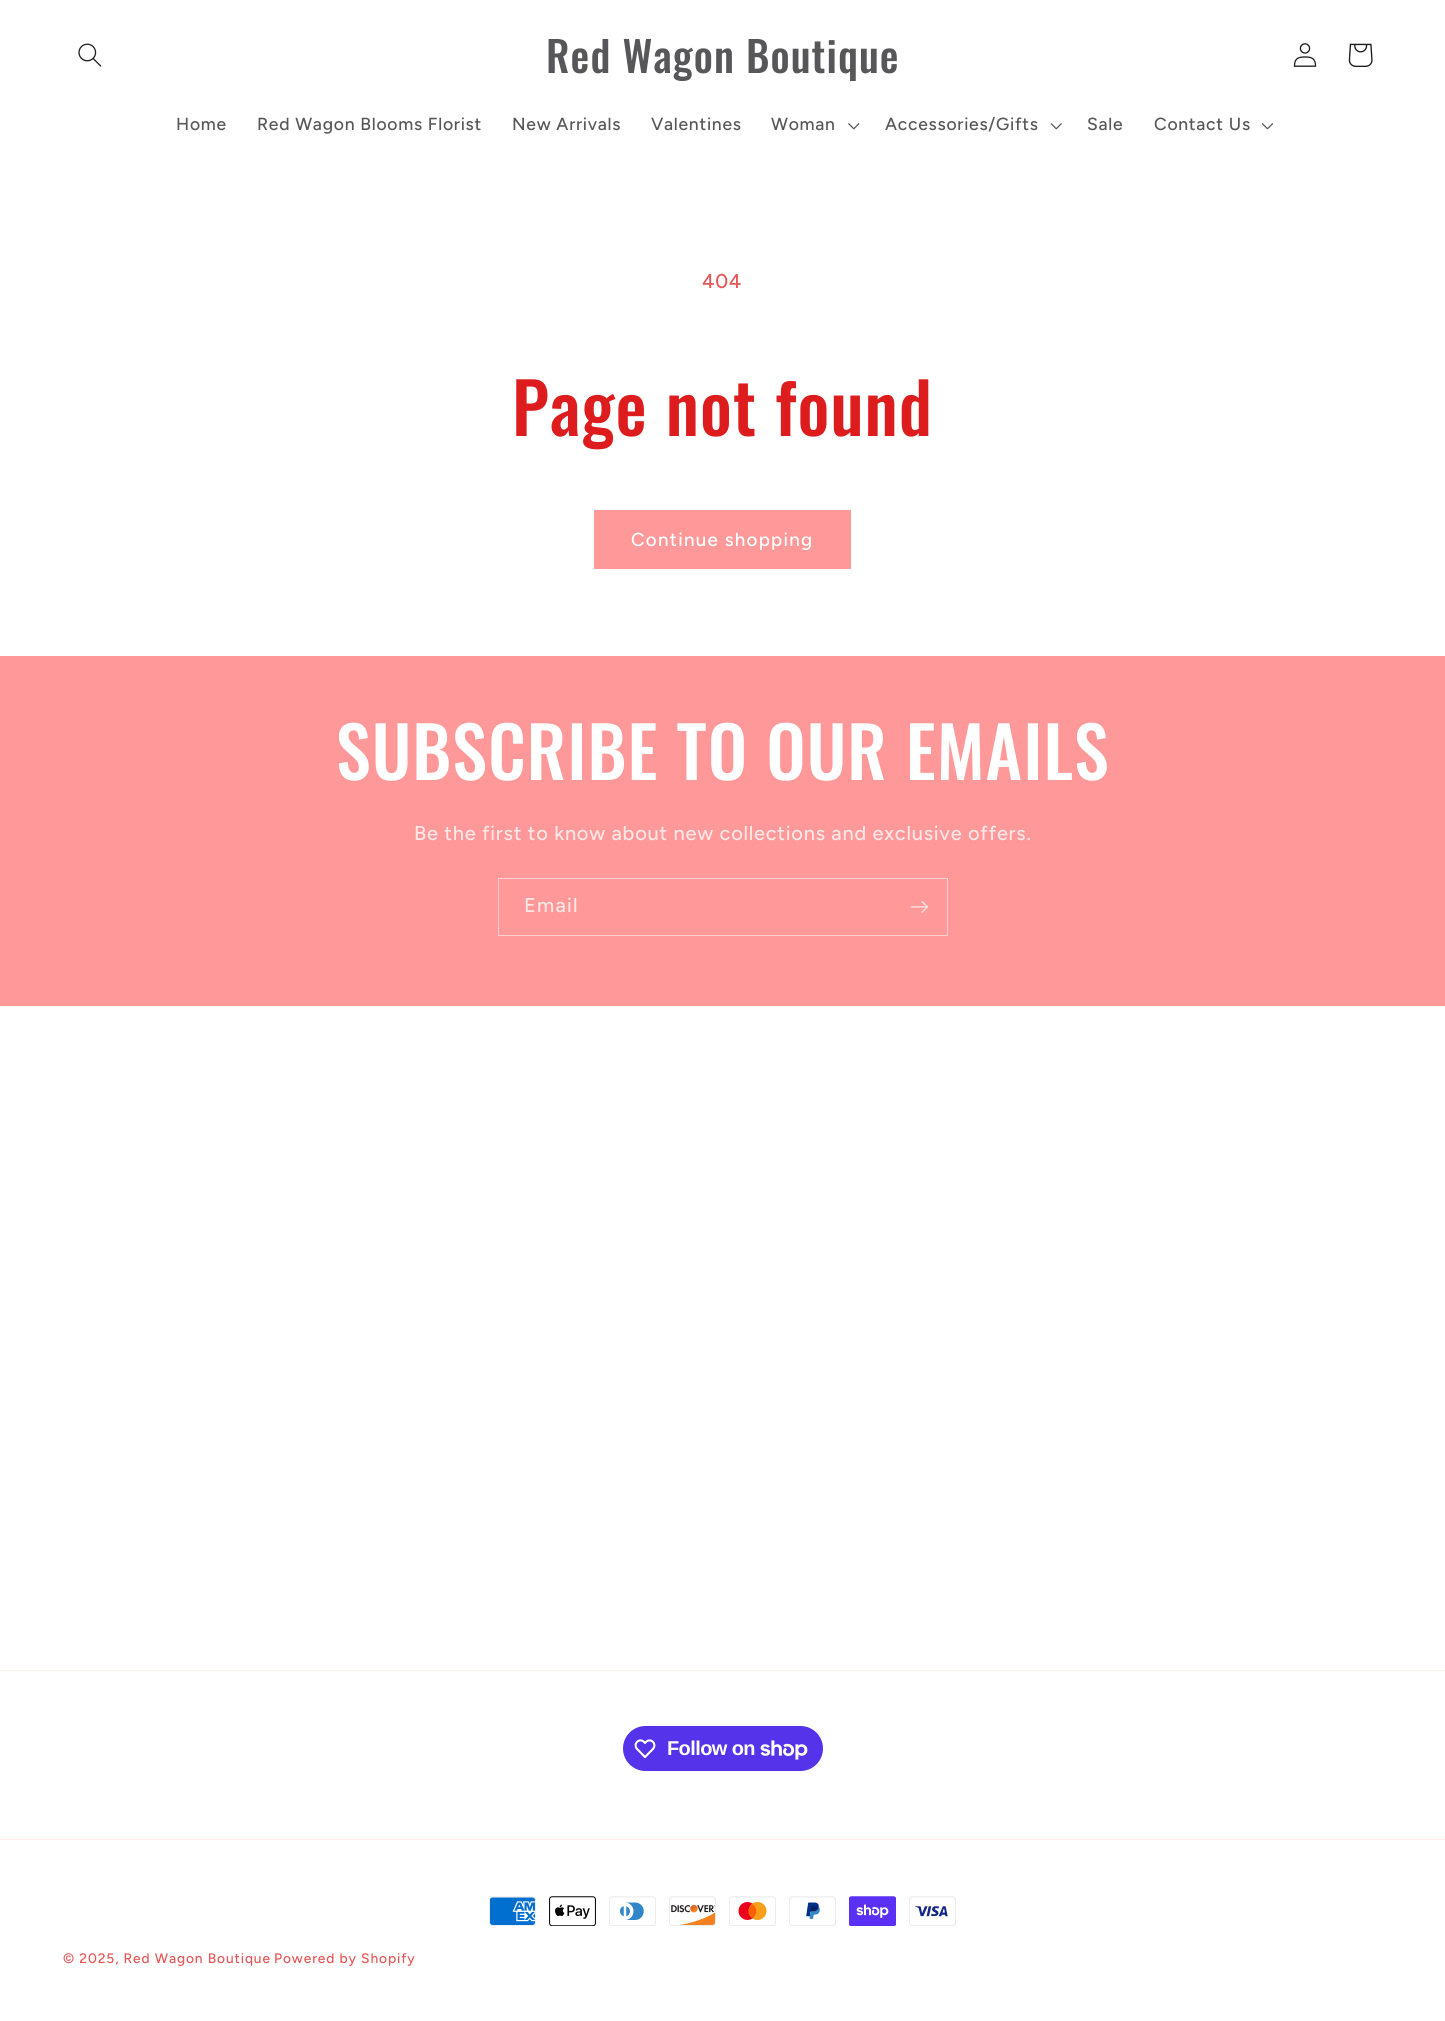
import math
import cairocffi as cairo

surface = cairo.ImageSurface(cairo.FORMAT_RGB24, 1445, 2021)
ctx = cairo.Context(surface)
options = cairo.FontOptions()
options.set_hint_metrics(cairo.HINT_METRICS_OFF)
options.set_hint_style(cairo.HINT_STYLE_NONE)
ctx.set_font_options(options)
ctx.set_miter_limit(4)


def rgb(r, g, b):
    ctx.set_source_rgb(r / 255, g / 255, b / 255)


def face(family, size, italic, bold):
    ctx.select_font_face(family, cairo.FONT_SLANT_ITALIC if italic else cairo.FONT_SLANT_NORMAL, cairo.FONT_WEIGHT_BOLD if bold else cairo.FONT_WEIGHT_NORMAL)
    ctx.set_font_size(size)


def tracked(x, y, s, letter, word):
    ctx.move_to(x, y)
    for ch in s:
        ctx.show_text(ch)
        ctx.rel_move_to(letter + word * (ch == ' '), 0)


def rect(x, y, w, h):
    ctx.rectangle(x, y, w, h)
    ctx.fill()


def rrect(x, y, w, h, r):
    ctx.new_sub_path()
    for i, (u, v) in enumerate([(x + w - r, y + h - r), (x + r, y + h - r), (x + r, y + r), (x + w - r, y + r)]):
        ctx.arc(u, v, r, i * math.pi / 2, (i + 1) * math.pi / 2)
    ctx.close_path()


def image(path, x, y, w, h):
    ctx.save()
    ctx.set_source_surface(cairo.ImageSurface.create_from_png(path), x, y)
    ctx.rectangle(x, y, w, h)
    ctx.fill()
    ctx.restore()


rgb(255, 255, 255)
ctx.paint()
image('image0.png', 78, 43, 24, 24)
face('Oswald Medium', 42, 0, 0)
rgb(87, 87, 89)
tracked(546, 73, 'Red Wagon Boutique', 1.05, 0)
image('image1.png', 1293, 43, 24, 24)
image('image2.png', 1348, 43, 25, 24)
face('Figtree Medium', 17.5, 0, 0)
tracked(176, 130, 'Home', 0.75, 0)
tracked(257, 130, 'Red Wagon Blooms Florist', 0.75, 0)
tracked(512, 130, 'New Arrivals', 0.75, 0)
tracked(651, 130, 'Valentines', 0.75, 0)
tracked(771, 130, 'Woman', 0.75, 0)
image('image3.png', 848, 123, 12, 7)
tracked(885, 130, 'Accessories/Gifts', 0.75, 0)
image('image4.png', 1050, 123, 12, 7)
tracked(1087, 130, 'Sale', 0.75, 0)
tracked(1154, 130, 'Contact Us', 0.75, 0)
image('image5.png', 1261, 123, 13, 7)
face('Figtree Medium', 20, 0, 0)
rgb(230, 86, 86)
tracked(702, 288, '404', 0.75, 0)
face('Oswald Medium', 70, 0, 0)
rgb(221, 29, 29)
tracked(512, 436, 'Page not found', 1.05, 0)
rgb(255, 153, 153)
rect(594, 510, 257, 59)
face('Figtree Medium', 18.75, 0, 0)
rgb(255, 255, 255)
tracked(631, 546, 'Continue shopping', 1.25, 0)
rgb(255, 153, 153)
rect(0, 656, 1445, 350)
face('Oswald Medium', 70, 0, 0)
rgb(255, 255, 255)
tracked(336, 780, 'SUBSCRIBE TO OUR EMAILS', 1.05, 0)
face('Figtree Medium', 20, 0, 0)
rgb(255, 230, 230)
tracked(414, 840, 'Be the first to know about new collections and exclusive offers.', 0.75, 0)
ctx.rectangle(498.5, 878.5, 449, 57)
rgb(255, 209, 209)
ctx.set_line_width(1)
ctx.stroke()
rgb(255, 230, 230)
tracked(524, 912, 'Email', 1.25, 0)
image('image6.png', 910, 901, 18, 12)
rgb(252, 237, 237)
rect(0, 1670, 1445, 1)
rgb(84, 51, 235)
rrect(623, 1726, 200, 45, 22.5)
ctx.fill()
image('image7.png', 634, 1739, 22, 20)
face('Liberation Sans', 20, 0, 1)
rgb(255, 255, 255)
tracked(667, 1755, 'Follow on', -0.6, 0)
image('image8.png', 760, 1740, 48, 20)
rgb(252, 237, 237)
rect(0, 1839, 1445, 1)
image('image9.png', 489, 1896, 47, 30)
image('image10.png', 549, 1896, 47, 30)
image('image11.png', 609, 1896, 47, 30)
image('image12.png', 669, 1896, 47, 30)
image('image13.png', 729, 1896, 47, 30)
image('image14.png', 789, 1896, 47, 30)
image('image15.png', 849, 1896, 47, 30)
image('image16.png', 909, 1896, 47, 30)
face('Figtree Medium', 13.75, 0, 0)
rgb(230, 86, 86)
tracked(63, 1963, '© 2025, Red Wagon Boutique', 0.9, 0)
tracked(274, 1963, 'Powered by Shopify', 0.9, 0)
surface.write_to_png('render.png')
